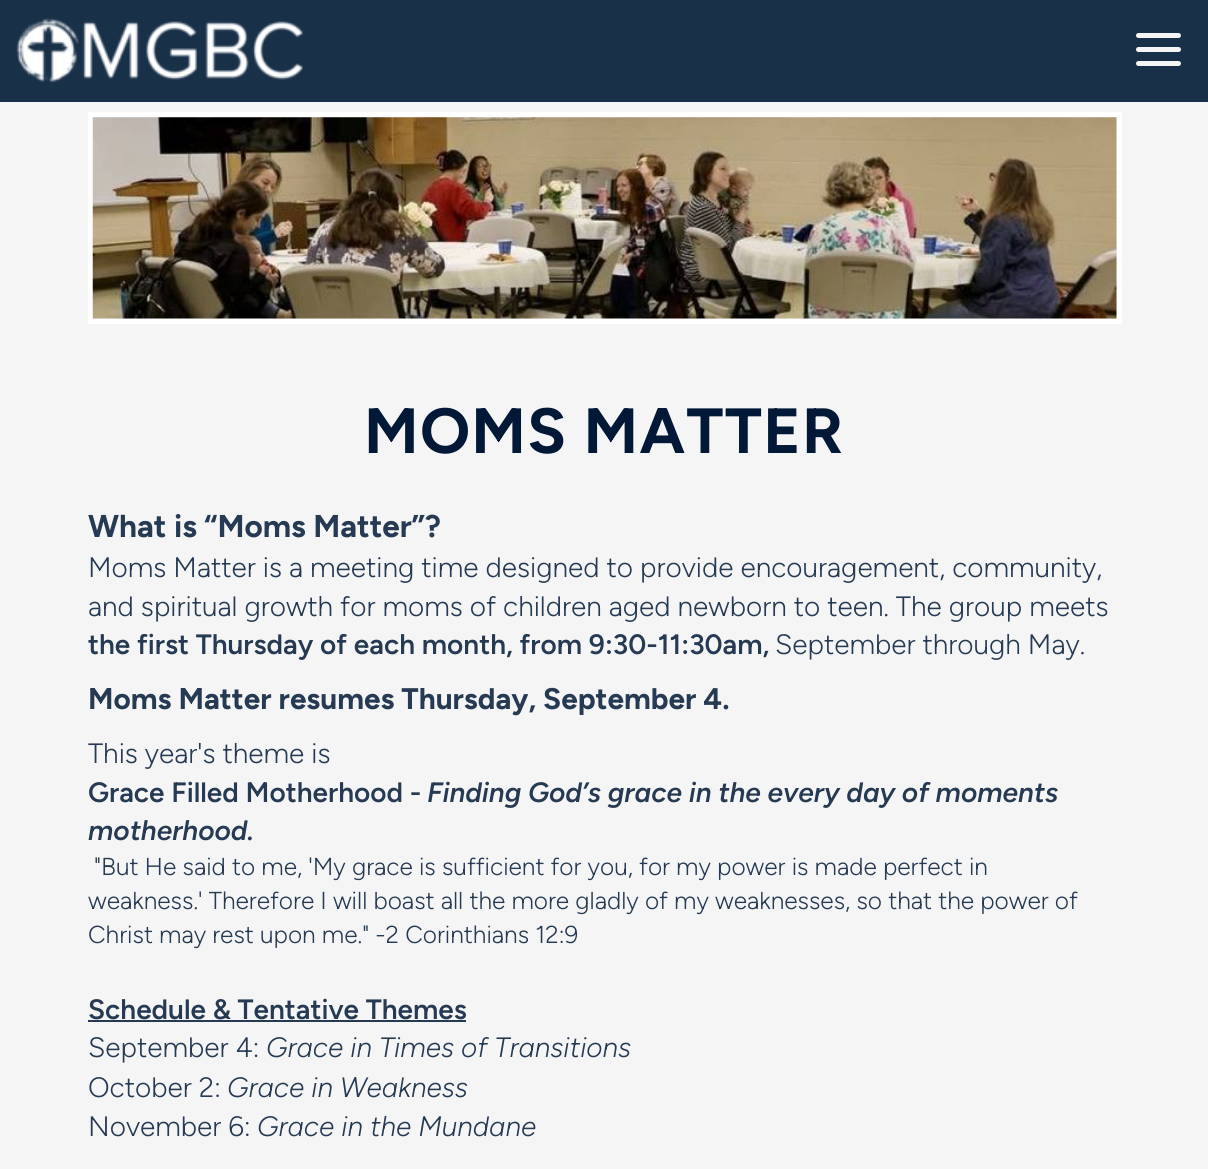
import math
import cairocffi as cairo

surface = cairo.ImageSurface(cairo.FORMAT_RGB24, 1208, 1169)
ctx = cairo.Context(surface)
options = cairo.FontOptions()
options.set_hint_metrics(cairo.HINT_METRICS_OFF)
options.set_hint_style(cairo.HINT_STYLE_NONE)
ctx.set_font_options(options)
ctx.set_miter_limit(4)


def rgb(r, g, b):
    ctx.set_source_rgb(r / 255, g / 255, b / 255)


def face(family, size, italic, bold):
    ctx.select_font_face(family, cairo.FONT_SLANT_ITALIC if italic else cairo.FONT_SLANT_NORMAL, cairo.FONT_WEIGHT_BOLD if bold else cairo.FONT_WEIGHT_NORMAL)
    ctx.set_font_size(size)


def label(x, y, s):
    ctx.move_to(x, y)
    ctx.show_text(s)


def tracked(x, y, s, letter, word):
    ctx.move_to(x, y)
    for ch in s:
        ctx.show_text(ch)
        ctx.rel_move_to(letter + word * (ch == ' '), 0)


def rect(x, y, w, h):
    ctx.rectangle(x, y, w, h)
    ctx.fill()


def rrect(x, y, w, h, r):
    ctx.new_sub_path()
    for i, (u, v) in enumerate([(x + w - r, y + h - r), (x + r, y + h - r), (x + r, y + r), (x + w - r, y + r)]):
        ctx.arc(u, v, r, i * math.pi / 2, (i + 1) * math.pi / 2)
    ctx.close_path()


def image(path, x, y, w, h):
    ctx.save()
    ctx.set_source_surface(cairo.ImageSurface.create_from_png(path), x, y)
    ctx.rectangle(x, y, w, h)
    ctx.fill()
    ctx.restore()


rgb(245, 245, 245)
ctx.paint()
rgb(25, 48, 73)
rect(0, 0, 1208, 102)
image('image0.png', 16, 18, 287, 65)
rgb(245, 245, 245)
rrect(1136, 33, 45, 5, 2.5)
ctx.fill()
rrect(1136, 47, 45, 5, 2.5)
ctx.fill()
rrect(1136, 61, 45, 5, 2.5)
ctx.fill()
ctx.rectangle(90.5, 114.5, 1029, 207)
rgb(255, 255, 255)
ctx.set_line_width(5)
ctx.stroke()
image('image1.png', 92, 117, 1025, 202)
face('Figtree Light', 63.75, 0, 0)
rgb(1, 25, 54)
tracked(364, 453, 'MOMS MATTER', 1.25, 0)
face('Figtree Light', 31.5, 0, 0)
rgb(38, 58, 83)
label(88, 537, 'What is “Moms Matter”?')
face('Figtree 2 Light', 28, 0, 0)
label(88, 577, 'Moms Matter is a meeting time designed to provide encouragement, community,')
label(88, 616, 'and spiritual growth for moms of children aged newborn to teen. The group meets')
face('Figtree SemiBold', 28, 0, 0)
label(88, 654, 'the first Thursday of each month, from 9:30-11:30am,')
face('Figtree 2 Light', 28, 0, 0)
label(775, 654, 'September through May.')
face('Figtree Light', 29.75, 0, 0)
label(88, 709, 'Moms Matter resumes Thursday, September 4.')
face('Figtree 2 Light', 28, 0, 0)
label(88, 763, 'This year\'s theme is')
face('Figtree SemiBold', 28, 0, 0)
label(88, 802, 'Grace Filled Motherhood -')
face('Figtree SemiBold', 28, 1, 0)
label(427, 802, 'Finding God’s grace in the every day of moments')
label(88, 840, 'motherhood.')
face('Figtree 2 Light', 24.5, 0, 0)
label(94, 875, '"But He said to me, \'My grace is sufficient for you, for my power is made perfect in')
label(88, 909, 'weakness.\' Therefore I will boast all the more gladly of my weaknesses, so that the power of')
label(88, 943, 'Christ may rest upon me." -2 Corinthians 12:9')
face('Figtree SemiBold', 28, 0, 0)
label(88, 1019, 'Schedule & Tentative Themes')
rect(88, 1020, 378, 2)
face('Figtree 2 Light', 28, 0, 0)
label(88, 1057, 'September 4:')
face('Figtree Light', 28, 1, 0)
label(266, 1057, 'Grace in Times of Transitions')
face('Figtree 2 Light', 28, 0, 0)
label(88, 1097, 'October 2:')
face('Figtree Light', 28, 1, 0)
label(227, 1097, 'Grace in Weakness')
face('Figtree 2 Light', 28, 0, 0)
label(88, 1136, 'November 6:')
face('Figtree Light', 28, 1, 0)
label(257, 1136, 'Grace in the Mundane')
surface.write_to_png('render.png')
